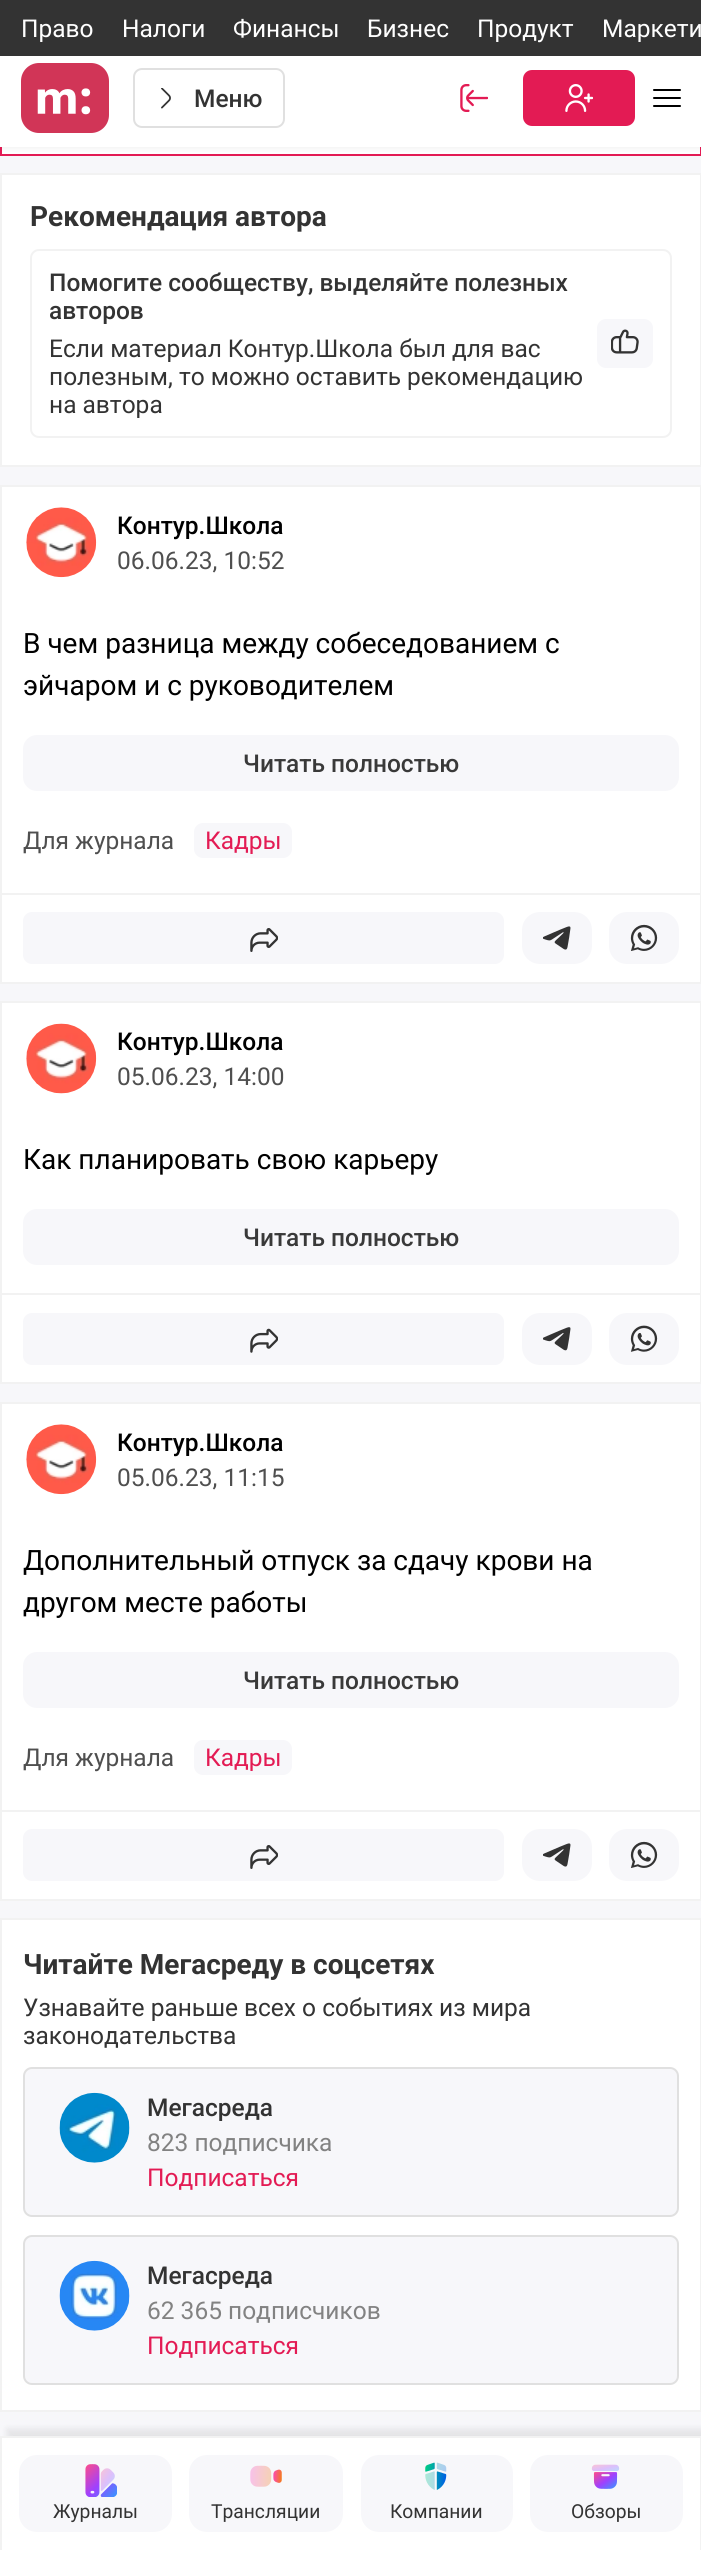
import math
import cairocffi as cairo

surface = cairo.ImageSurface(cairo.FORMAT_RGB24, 701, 2550)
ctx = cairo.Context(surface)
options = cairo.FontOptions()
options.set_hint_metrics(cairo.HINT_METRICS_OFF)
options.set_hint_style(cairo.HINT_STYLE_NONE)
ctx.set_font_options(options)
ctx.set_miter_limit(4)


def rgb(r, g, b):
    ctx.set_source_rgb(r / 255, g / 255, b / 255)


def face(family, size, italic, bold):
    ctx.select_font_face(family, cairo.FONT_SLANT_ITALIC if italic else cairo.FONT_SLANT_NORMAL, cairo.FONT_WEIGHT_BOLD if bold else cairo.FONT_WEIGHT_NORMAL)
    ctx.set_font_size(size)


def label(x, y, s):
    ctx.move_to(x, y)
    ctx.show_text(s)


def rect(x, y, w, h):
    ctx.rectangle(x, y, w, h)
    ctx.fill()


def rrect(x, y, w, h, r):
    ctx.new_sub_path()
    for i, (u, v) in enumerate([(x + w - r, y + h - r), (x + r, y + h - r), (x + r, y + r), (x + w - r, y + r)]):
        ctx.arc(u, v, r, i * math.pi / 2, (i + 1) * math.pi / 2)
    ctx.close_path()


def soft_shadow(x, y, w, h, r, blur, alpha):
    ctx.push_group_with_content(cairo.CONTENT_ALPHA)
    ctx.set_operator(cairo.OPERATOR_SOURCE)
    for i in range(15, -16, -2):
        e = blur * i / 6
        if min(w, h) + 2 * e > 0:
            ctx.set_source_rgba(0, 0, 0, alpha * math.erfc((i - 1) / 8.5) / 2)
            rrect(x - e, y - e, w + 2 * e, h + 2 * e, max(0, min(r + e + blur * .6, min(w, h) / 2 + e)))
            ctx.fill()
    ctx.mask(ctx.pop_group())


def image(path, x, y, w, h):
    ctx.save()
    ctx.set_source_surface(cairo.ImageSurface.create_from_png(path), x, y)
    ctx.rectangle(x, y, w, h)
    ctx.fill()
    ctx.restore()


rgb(247, 247, 250)
ctx.paint()
rgb(255, 255, 255)
rect(2, 147, 698, 7)
ctx.rectangle(1, -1, 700, 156)
rgb(227, 27, 84)
ctx.stroke()
rgb(0, 0, 0)
soft_shadow(0, 2, 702, 147, 0, 2, 0.05)
rgb(255, 255, 255)
rect(0, 56, 701, 91)
rgb(51, 51, 51)
rect(0, 0, 701, 56)
face('Roboto', 24.5, 0, 0)
rgb(255, 255, 255)
label(21, 37, 'Право')
label(122, 37, 'Налоги')
label(233, 37, 'Финансы')
label(367, 37, 'Бизнес')
label(477, 37, 'Продукт')
label(602, 37, 'Маркети')
image('image0.png', 21, 63, 88, 70)
rrect(134, 69, 150, 58, 8)
rgb(224, 224, 224)
ctx.stroke()
image('image1.png', 161, 88, 10, 21)
face('Roboto Medium', 24.5, 0, 0)
rgb(51, 51, 51)
label(194, 107, 'Меню')
image('image2.png', 460, 84, 28, 28)
rgb(227, 27, 84)
rrect(523, 70, 112, 56, 9)
ctx.fill()
image('image3.png', 565, 84, 28, 28)
rgb(0, 0, 0)
rrect(653, 97, 28, 2, 1)
ctx.fill()
rrect(653, 89, 28, 2, 1)
ctx.fill()
rrect(653, 105, 28, 2, 1)
ctx.fill()
rgb(0, 0, 0)
soft_shadow(7, 2429, 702, 116, 0, 3.5, 0.08)
rgb(255, 255, 255)
ctx.rectangle(1, 2437, 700, 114)
ctx.fill_preserve()
rgb(242, 242, 242)
ctx.stroke()
rgb(247, 247, 250)
rrect(19, 2455, 153, 77, 18)
ctx.fill()
image('image4.png', 85, 2464, 32, 33)
face('Roboto', 19.25, 0, 0)
rgb(51, 51, 51)
label(53, 2518, 'Журналы')
rgb(247, 247, 250)
rrect(189, 2455, 154, 77, 18)
ctx.fill()
image('image5.png', 250, 2465, 32, 22)
rgb(51, 51, 51)
label(211, 2518, 'Трансляции')
rgb(247, 247, 250)
rrect(361, 2455, 152, 77, 18)
ctx.fill()
image('image6.png', 425, 2462, 22, 28)
rgb(51, 51, 51)
label(390, 2518, 'Компании')
rgb(247, 247, 250)
rrect(530, 2455, 153, 77, 18)
ctx.fill()
image('image7.png', 591, 2464, 29, 25)
rgb(51, 51, 51)
label(571, 2518, 'Обзоры')
rgb(255, 255, 255)
ctx.rectangle(1, 174, 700, 292)
ctx.fill_preserve()
rgb(242, 242, 242)
ctx.stroke()
face('Roboto', 28, 0, 1)
rgb(51, 51, 51)
label(30, 226, 'Рекомендация автора')
rrect(31, 250, 640, 187, 8)
rgb(242, 242, 242)
ctx.stroke()
face('Roboto Medium', 24.5, 0, 0)
rgb(51, 51, 51)
label(49, 291, 'Помогите сообществу, выделяйте полезных')
label(49, 319, 'авторов')
face('Roboto', 24.5, 0, 0)
label(49, 357, 'Если материал Контур.Школа был для вас')
label(49, 385, 'полезным, то можно оставить рекомендацию')
label(49, 413, 'на автора')
rgb(247, 247, 250)
rrect(597, 319, 56, 49, 9)
ctx.fill()
image('image8.png', 611, 329, 28, 25)
rgb(255, 255, 255)
ctx.rectangle(1, 486, 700, 497)
ctx.fill_preserve()
rgb(242, 242, 242)
ctx.stroke()
image('image9.png', 26, 507, 71, 71)
face('Roboto Medium', 24.5, 0, 0)
rgb(0, 0, 0)
label(117, 534, 'Контур.Школа')
face('Roboto', 24.5, 0, 0)
rgb(79, 79, 79)
label(117, 569, '06.06.23, 10:52')
face('Roboto', 28, 0, 0)
rgb(0, 0, 0)
label(23, 653, 'В чем разница между собеседованием с')
label(23, 695, 'эйчаром и с руководителем')
rgb(247, 247, 250)
rrect(23, 735, 656, 56, 14)
ctx.fill()
face('Roboto Medium', 24.5, 0, 0)
rgb(57, 57, 57)
label(243, 772, 'Читать полностью')
face('Roboto', 24.5, 0, 0)
rgb(79, 79, 79)
label(23, 849, 'Для журнала')
rgb(247, 247, 250)
rrect(194, 823, 98, 35, 9)
ctx.fill()
rgb(227, 27, 84)
label(205, 849, 'Кадры')
rgb(242, 242, 242)
rect(2, 893, 698, 2)
rgb(247, 247, 250)
rrect(23, 912, 481, 52, 9)
ctx.fill()
image('image10.png', 250, 928, 28, 24)
rrect(522, 912, 70, 52, 18)
ctx.fill()
image('image11.png', 543, 926, 28, 24)
rrect(609, 912, 70, 52, 18)
ctx.fill()
image('image12.png', 630, 924, 28, 27)
rgb(255, 255, 255)
ctx.rectangle(1, 1002, 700, 381)
ctx.fill_preserve()
rgb(242, 242, 242)
ctx.stroke()
image('image13.png', 26, 1023, 71, 71)
face('Roboto Medium', 24.5, 0, 0)
rgb(0, 0, 0)
label(117, 1050, 'Контур.Школа')
face('Roboto', 24.5, 0, 0)
rgb(79, 79, 79)
label(117, 1085, '05.06.23, 14:00')
face('Roboto', 28, 0, 0)
rgb(0, 0, 0)
label(23, 1169, 'Как планировать свою карьеру')
rgb(247, 247, 250)
rrect(23, 1209, 656, 56, 14)
ctx.fill()
face('Roboto Medium', 24.5, 0, 0)
rgb(57, 57, 57)
label(243, 1246, 'Читать полностью')
rgb(242, 242, 242)
rect(2, 1293, 698, 2)
rgb(247, 247, 250)
rrect(23, 1313, 481, 52, 9)
ctx.fill()
image('image14.png', 250, 1328, 28, 25)
rrect(522, 1313, 70, 52, 18)
ctx.fill()
image('image15.png', 543, 1327, 28, 24)
rrect(609, 1313, 70, 52, 18)
ctx.fill()
image('image16.png', 630, 1325, 28, 27)
rgb(255, 255, 255)
ctx.rectangle(1, 1403, 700, 497)
ctx.fill_preserve()
rgb(242, 242, 242)
ctx.stroke()
image('image9.png', 26, 1424, 71, 71)
rgb(0, 0, 0)
label(117, 1451, 'Контур.Школа')
face('Roboto', 24.5, 0, 0)
rgb(79, 79, 79)
label(117, 1486, '05.06.23, 11:15')
face('Roboto', 28, 0, 0)
rgb(0, 0, 0)
label(23, 1570, 'Дополнительный отпуск за сдачу крови на')
label(23, 1612, 'другом месте работы')
rgb(247, 247, 250)
rrect(23, 1652, 656, 56, 14)
ctx.fill()
face('Roboto Medium', 24.5, 0, 0)
rgb(57, 57, 57)
label(243, 1689, 'Читать полностью')
face('Roboto', 24.5, 0, 0)
rgb(79, 79, 79)
label(23, 1766, 'Для журнала')
rgb(247, 247, 250)
rrect(194, 1740, 98, 35, 9)
ctx.fill()
rgb(227, 27, 84)
label(205, 1766, 'Кадры')
rgb(242, 242, 242)
rect(2, 1810, 698, 2)
rgb(247, 247, 250)
rrect(23, 1829, 481, 52, 9)
ctx.fill()
image('image10.png', 250, 1845, 28, 24)
rrect(522, 1829, 70, 52, 18)
ctx.fill()
image('image11.png', 543, 1843, 28, 24)
rrect(609, 1829, 70, 52, 18)
ctx.fill()
image('image12.png', 630, 1841, 28, 27)
rgb(255, 255, 255)
ctx.rectangle(1, 1919, 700, 492)
ctx.fill_preserve()
rgb(242, 242, 242)
ctx.stroke()
face('Roboto', 28, 0, 1)
rgb(51, 51, 51)
label(23, 1974, 'Читайте Мегасреду в соцсетях')
face('Roboto', 24.5, 0, 0)
label(23, 2016, 'Узнавайте раньше всех о событиях из мира')
label(23, 2044, 'законодательства')
rgb(247, 247, 250)
rrect(24, 2068, 654, 148, 8)
ctx.fill_preserve()
rgb(224, 224, 224)
ctx.stroke()
image('image17.png', 59, 2092, 71, 71)
face('Roboto Medium', 24.5, 0, 0)
rgb(51, 51, 51)
label(147, 2116, 'Мегасреда')
face('Roboto', 24.5, 0, 0)
rgb(130, 130, 130)
label(147, 2151, '823 подписчика')
rgb(227, 27, 84)
label(147, 2186, 'Подписаться')
rgb(247, 247, 250)
rrect(24, 2236, 654, 148, 8)
ctx.fill_preserve()
rgb(224, 224, 224)
ctx.stroke()
image('image18.png', 59, 2260, 71, 71)
face('Roboto Medium', 24.5, 0, 0)
rgb(51, 51, 51)
label(147, 2284, 'Мегасреда')
face('Roboto', 24.5, 0, 0)
rgb(130, 130, 130)
label(147, 2319, '62 365 подписчиков')
rgb(227, 27, 84)
label(147, 2354, 'Подписаться')
surface.write_to_png('render.png')
